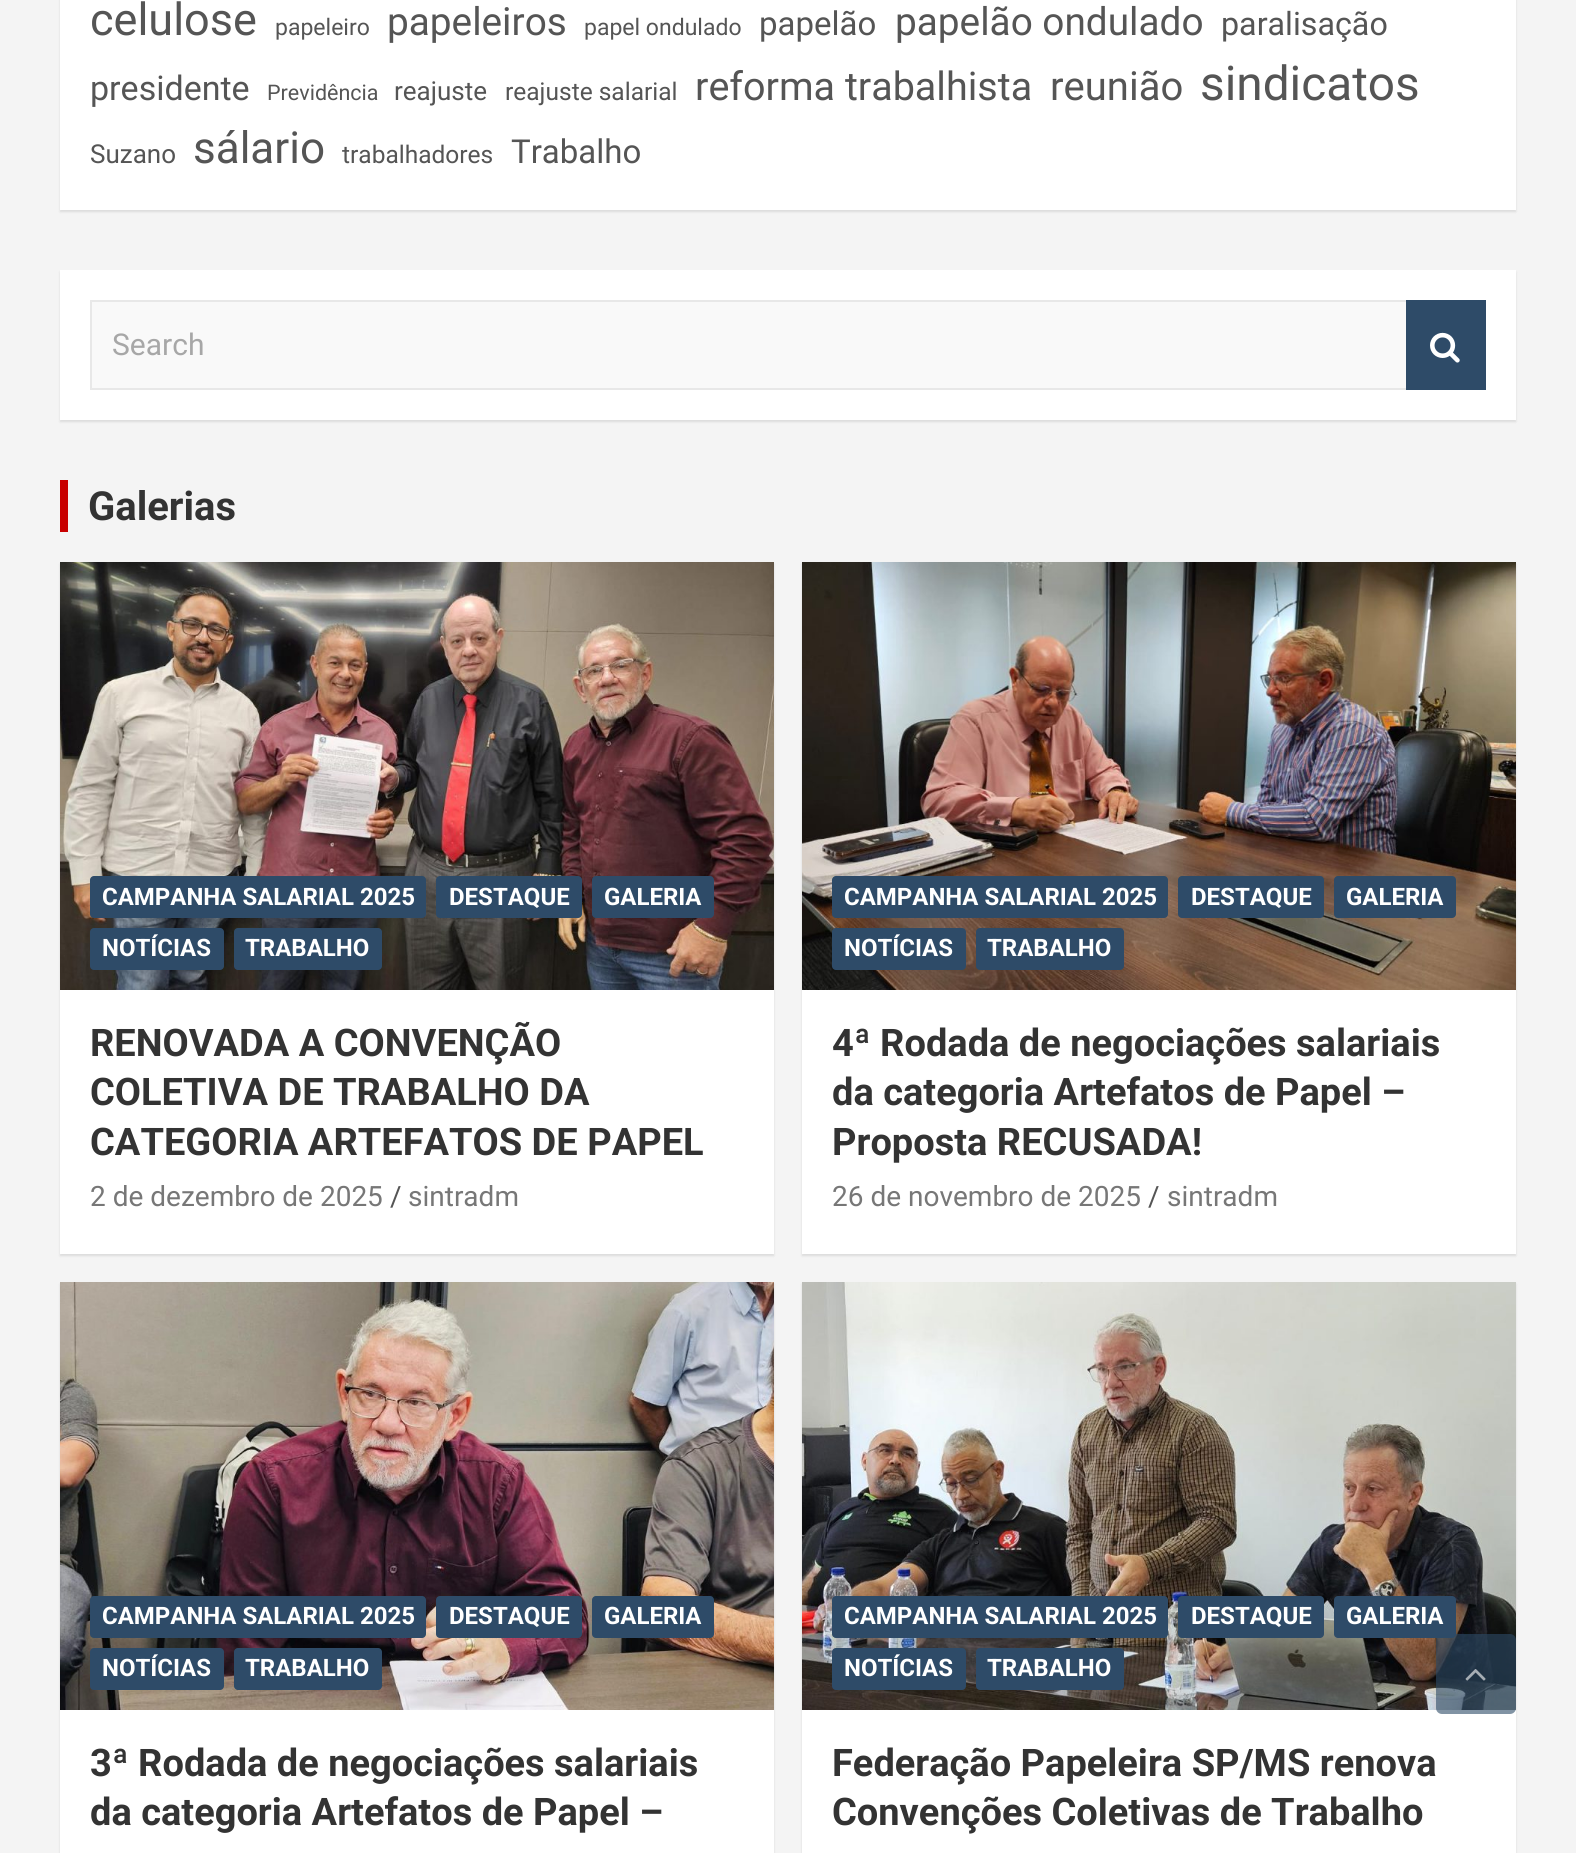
import math
import cairocffi as cairo

surface = cairo.ImageSurface(cairo.FORMAT_RGB24, 1576, 1853)
ctx = cairo.Context(surface)
options = cairo.FontOptions()
options.set_hint_metrics(cairo.HINT_METRICS_OFF)
options.set_hint_style(cairo.HINT_STYLE_NONE)
ctx.set_font_options(options)
ctx.set_miter_limit(4)


def rgb(r, g, b):
    ctx.set_source_rgb(r / 255, g / 255, b / 255)


def face(family, size, italic, bold):
    ctx.select_font_face(family, cairo.FONT_SLANT_ITALIC if italic else cairo.FONT_SLANT_NORMAL, cairo.FONT_WEIGHT_BOLD if bold else cairo.FONT_WEIGHT_NORMAL)
    ctx.set_font_size(size)


def label(x, y, s):
    ctx.move_to(x, y)
    ctx.show_text(s)


def rect(x, y, w, h):
    ctx.rectangle(x, y, w, h)
    ctx.fill()


def rrect(x, y, w, h, r):
    ctx.new_sub_path()
    for i, (u, v) in enumerate([(x + w - r, y + h - r), (x + r, y + h - r), (x + r, y + r), (x + w - r, y + r)]):
        ctx.arc(u, v, r, i * math.pi / 2, (i + 1) * math.pi / 2)
    ctx.close_path()


def soft_shadow(x, y, w, h, r, blur, alpha):
    ctx.push_group_with_content(cairo.CONTENT_ALPHA)
    ctx.set_operator(cairo.OPERATOR_SOURCE)
    for i in range(15, -16, -2):
        e = blur * i / 6
        if min(w, h) + 2 * e > 0:
            ctx.set_source_rgba(0, 0, 0, alpha * math.erfc((i - 1) / 8.5) / 2)
            rrect(x - e, y - e, w + 2 * e, h + 2 * e, max(0, min(r + e + blur * .6, min(w, h) / 2 + e)))
            ctx.fill()
    ctx.mask(ctx.pop_group())


def image(path, x, y, w, h):
    ctx.save()
    ctx.set_source_surface(cairo.ImageSurface.create_from_png(path), x, y)
    ctx.rectangle(x, y, w, h)
    ctx.fill()
    ctx.restore()


rgb(244, 244, 244)
ctx.paint()
rgb(0, 0, 0)
soft_shadow(60, -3, 1456, 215, 0, 1, 0.1)
rgb(255, 255, 255)
rect(60, 0, 1456, 210)
face('Roboto', 45, 0, 0)
rgb(85, 85, 85)
label(90, 35, 'celulose')
face('Roboto', 23, 0, 0)
label(275, 35, 'papeleiro')
face('Roboto', 38.75, 0, 0)
label(387, 35, 'papeleiros')
face('Roboto', 23, 0, 0)
label(584, 35, 'papel ondulado')
face('Roboto', 33, 0, 0)
label(759, 35, 'papelão')
face('Roboto', 38.75, 0, 0)
label(895, 35, 'papelão ondulado')
face('Roboto', 32.25, 0, 0)
label(1221, 35, 'paralisação')
face('Roboto', 34, 0, 0)
label(90, 100, 'presidente')
face('Roboto', 21.5, 0, 0)
label(267, 100, 'Previdência')
face('Roboto', 26, 0, 0)
label(394, 100, 'reajuste')
face('Roboto', 24.5, 0, 0)
label(505, 100, 'reajuste salarial')
face('Roboto', 39.5, 0, 0)
label(695, 100, 'reforma trabalhista')
face('Roboto', 40, 0, 0)
label(1050, 100, 'reunião')
face('Roboto', 47.75, 0, 0)
label(1200, 100, 'sindicatos')
face('Roboto', 26, 0, 0)
label(90, 163, 'Suzano')
face('Roboto', 44, 0, 0)
label(193, 163, 'sálario')
face('Roboto', 24.5, 0, 0)
label(342, 163, 'trabalhadores')
face('Roboto', 33, 0, 0)
label(511, 163, 'Trabalho')
rgb(0, 0, 0)
soft_shadow(60, 272, 1456, 150, 0, 1, 0.1)
rgb(255, 255, 255)
rect(60, 270, 1456, 150)
rgb(249, 249, 249)
rect(92, 302, 1314, 86)
rgb(232, 232, 232)
ctx.new_path()
ctx.move_to(90, 300)
ctx.line_to(1406, 300)
ctx.line_to(1406, 302)
ctx.line_to(92, 302)
ctx.close_path()
ctx.fill()
ctx.new_path()
ctx.move_to(1406, 390)
ctx.line_to(90, 390)
ctx.line_to(92, 388)
ctx.line_to(1406, 388)
ctx.close_path()
ctx.fill()
ctx.set_source_rgba(0, 0, 0, 0.09)
ctx.new_path()
ctx.move_to(90, 390)
ctx.line_to(90, 300)
ctx.line_to(92, 302)
ctx.line_to(92, 388)
ctx.close_path()
ctx.fill()
face('Roboto', 30, 0, 0)
rgb(167, 167, 167)
label(112, 355, 'Search')
rgb(46, 75, 104)
rect(1406, 300, 80, 90)
image('image0.png', 1430, 332, 30, 31)
rgb(200, 0, 0)
rect(60, 480, 8, 52)
face('Roboto', 40, 0, 1)
rgb(51, 51, 51)
label(88, 520, 'Galerias')
rgb(0, 0, 0)
soft_shadow(60, 564, 714, 692, 0, 1, 0.1)
rgb(255, 255, 255)
rect(60, 990, 714, 264)
image('image1.png', 60, 562, 714, 428)
rgb(46, 75, 104)
rrect(90, 876, 336, 42, 4)
ctx.fill()
face('Roboto', 24, 0, 1)
rgb(255, 255, 255)
label(102, 905, 'CAMPANHA SALARIAL 2025')
rgb(46, 75, 104)
rrect(436, 876, 146, 42, 4)
ctx.fill()
rgb(255, 255, 255)
label(449, 905, 'DESTAQUE')
rgb(46, 75, 104)
rrect(592, 876, 122, 42, 4)
ctx.fill()
rgb(255, 255, 255)
label(604, 905, 'GALERIA')
rgb(46, 75, 104)
rrect(90, 928, 134, 42, 4)
ctx.fill()
rgb(255, 255, 255)
label(102, 956, 'NOTÍCIAS')
rgb(46, 75, 104)
rrect(234, 928, 148, 42, 4)
ctx.fill()
rgb(255, 255, 255)
label(245, 956, 'TRABALHO')
face('Roboto', 38, 0, 1)
rgb(51, 51, 51)
label(90, 1056, 'RENOVADA A CONVENÇÃO')
label(90, 1105, 'COLETIVA DE TRABALHO DA')
label(90, 1155, 'CATEGORIA ARTEFATOS DE PAPEL')
face('Roboto', 28, 0, 0)
rgb(119, 119, 119)
label(90, 1206, '2 de dezembro de 2025')
rgb(85, 85, 85)
label(390, 1206, '/')
rgb(119, 119, 119)
label(408, 1206, 'sintradm')
rgb(0, 0, 0)
soft_shadow(802, 564, 714, 692, 0, 1, 0.1)
rgb(255, 255, 255)
rect(802, 990, 714, 264)
image('image2.png', 802, 562, 714, 428)
rgb(46, 75, 104)
rrect(832, 876, 336, 42, 4)
ctx.fill()
face('Roboto', 24, 0, 1)
rgb(255, 255, 255)
label(844, 905, 'CAMPANHA SALARIAL 2025')
rgb(46, 75, 104)
rrect(1178, 876, 146, 42, 4)
ctx.fill()
rgb(255, 255, 255)
label(1191, 905, 'DESTAQUE')
rgb(46, 75, 104)
rrect(1334, 876, 122, 42, 4)
ctx.fill()
rgb(255, 255, 255)
label(1346, 905, 'GALERIA')
rgb(46, 75, 104)
rrect(832, 928, 134, 42, 4)
ctx.fill()
rgb(255, 255, 255)
label(844, 956, 'NOTÍCIAS')
rgb(46, 75, 104)
rrect(976, 928, 148, 42, 4)
ctx.fill()
rgb(255, 255, 255)
label(987, 956, 'TRABALHO')
face('Roboto', 38, 0, 1)
rgb(51, 51, 51)
label(832, 1056, '4ª Rodada de negociações salariais')
label(832, 1105, 'da categoria Artefatos de Papel –')
label(832, 1155, 'Proposta RECUSADA!')
face('Roboto', 28, 0, 0)
rgb(119, 119, 119)
label(832, 1206, '26 de novembro de 2025')
rgb(85, 85, 85)
label(1148, 1206, '/')
rgb(119, 119, 119)
label(1167, 1206, 'sintradm')
rgb(0, 0, 0)
soft_shadow(60, 1284, 714, 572, 0, 1, 0.1)
rgb(255, 255, 255)
rect(60, 1710, 714, 143)
image('image3.png', 60, 1282, 714, 428)
rgb(46, 75, 104)
rrect(90, 1596, 336, 42, 4)
ctx.fill()
face('Roboto', 24, 0, 1)
rgb(255, 255, 255)
label(102, 1624, 'CAMPANHA SALARIAL 2025')
rgb(46, 75, 104)
rrect(436, 1596, 146, 42, 4)
ctx.fill()
rgb(255, 255, 255)
label(449, 1624, 'DESTAQUE')
rgb(46, 75, 104)
rrect(592, 1596, 122, 42, 4)
ctx.fill()
rgb(255, 255, 255)
label(604, 1624, 'GALERIA')
rgb(46, 75, 104)
rrect(90, 1648, 134, 42, 4)
ctx.fill()
rgb(255, 255, 255)
label(102, 1676, 'NOTÍCIAS')
rgb(46, 75, 104)
rrect(234, 1648, 148, 42, 4)
ctx.fill()
rgb(255, 255, 255)
label(245, 1676, 'TRABALHO')
face('Roboto', 38, 0, 1)
rgb(51, 51, 51)
label(90, 1776, '3ª Rodada de negociações salariais')
label(90, 1825, 'da categoria Artefatos de Papel –')
rgb(0, 0, 0)
soft_shadow(802, 1284, 714, 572, 0, 1, 0.1)
rgb(255, 255, 255)
rect(802, 1710, 714, 143)
image('image4.png', 802, 1282, 714, 428)
rgb(46, 75, 104)
rrect(832, 1596, 336, 42, 4)
ctx.fill()
face('Roboto', 24, 0, 1)
rgb(255, 255, 255)
label(844, 1624, 'CAMPANHA SALARIAL 2025')
rgb(46, 75, 104)
rrect(1178, 1596, 146, 42, 4)
ctx.fill()
rgb(255, 255, 255)
label(1191, 1624, 'DESTAQUE')
rgb(46, 75, 104)
rrect(1334, 1596, 122, 42, 4)
ctx.fill()
rgb(255, 255, 255)
label(1346, 1624, 'GALERIA')
rgb(46, 75, 104)
rrect(832, 1648, 134, 42, 4)
ctx.fill()
rgb(255, 255, 255)
label(844, 1676, 'NOTÍCIAS')
rgb(46, 75, 104)
rrect(976, 1648, 148, 42, 4)
ctx.fill()
rgb(255, 255, 255)
label(987, 1676, 'TRABALHO')
face('Roboto', 38, 0, 1)
rgb(51, 51, 51)
label(832, 1776, 'Federação Papeleira SP/MS renova')
label(832, 1825, 'Convenções Coletivas de Trabalho')
ctx.set_source_rgba(0.18, 0.294, 0.408, 0.6)
rrect(1436, 1634, 80, 80, 6)
ctx.fill()
image('image5.png', 1465, 1669, 21, 12)
surface.write_to_png('render.png')
